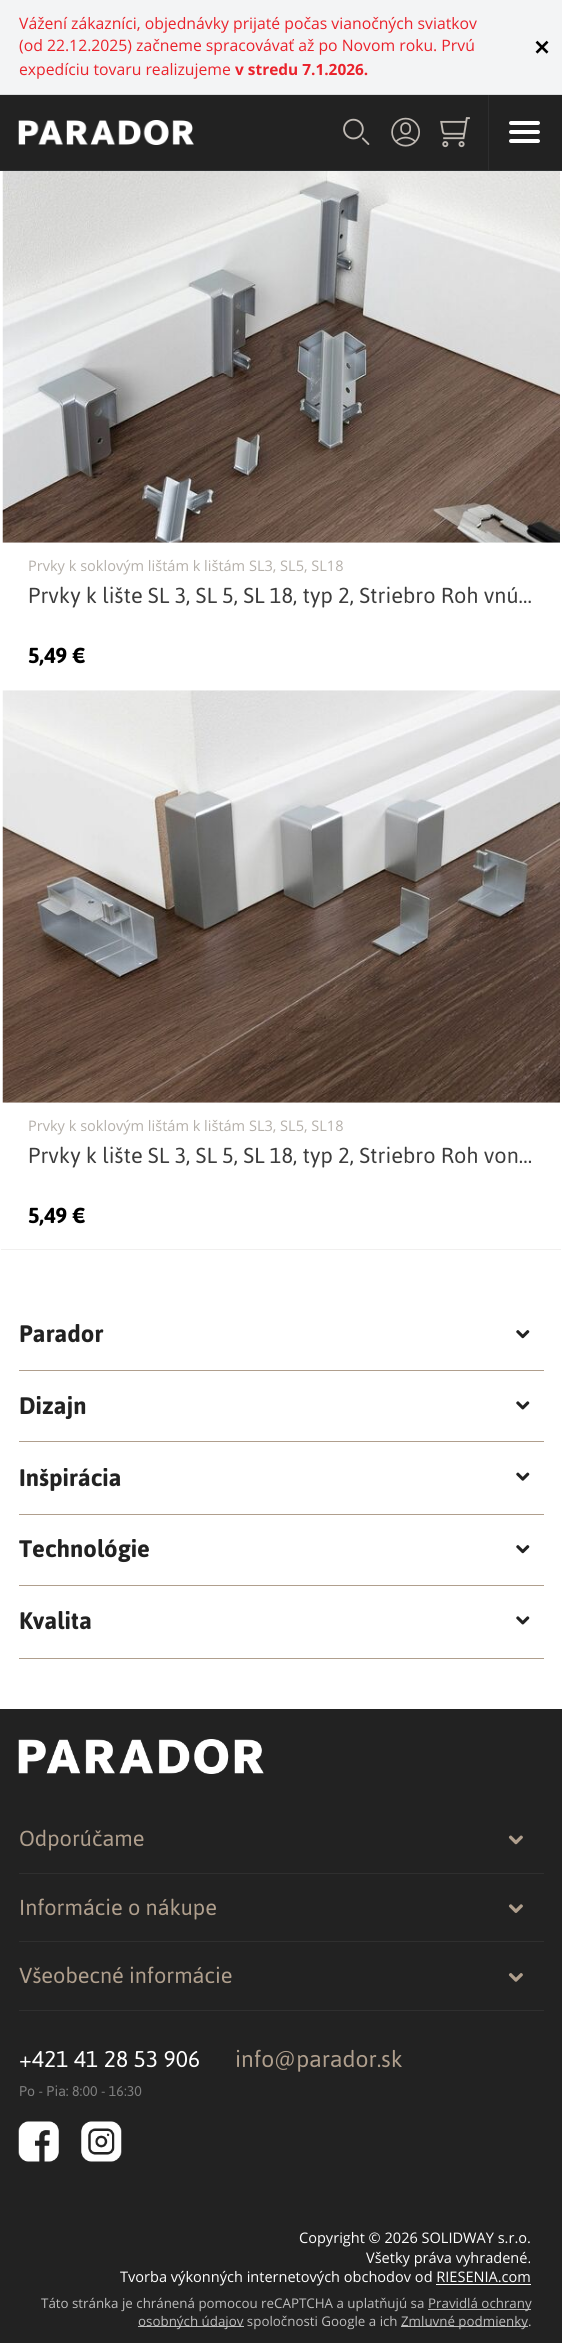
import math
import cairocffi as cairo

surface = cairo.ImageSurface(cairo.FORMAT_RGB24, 562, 2343)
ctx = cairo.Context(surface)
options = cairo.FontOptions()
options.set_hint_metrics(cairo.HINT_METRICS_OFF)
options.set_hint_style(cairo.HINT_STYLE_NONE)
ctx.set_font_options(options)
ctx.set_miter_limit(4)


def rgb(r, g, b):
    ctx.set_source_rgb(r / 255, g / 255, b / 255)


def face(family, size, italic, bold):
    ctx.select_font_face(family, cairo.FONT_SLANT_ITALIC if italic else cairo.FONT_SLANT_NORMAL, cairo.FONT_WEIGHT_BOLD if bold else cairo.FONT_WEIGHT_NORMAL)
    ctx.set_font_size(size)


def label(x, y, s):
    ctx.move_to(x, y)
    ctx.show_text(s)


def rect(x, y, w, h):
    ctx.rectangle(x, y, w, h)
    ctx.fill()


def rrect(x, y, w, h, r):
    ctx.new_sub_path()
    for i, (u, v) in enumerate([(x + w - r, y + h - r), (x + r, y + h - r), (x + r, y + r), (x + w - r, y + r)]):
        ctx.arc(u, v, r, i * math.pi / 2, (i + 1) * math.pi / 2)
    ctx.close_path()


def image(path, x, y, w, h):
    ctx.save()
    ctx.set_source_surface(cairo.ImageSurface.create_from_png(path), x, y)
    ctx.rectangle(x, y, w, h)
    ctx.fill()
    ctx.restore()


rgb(255, 255, 255)
ctx.paint()
rgb(34, 34, 34)
rect(0, 95, 562, 75)
rgb(46, 49, 51)
rect(0, 170, 562, 1)
rgb(243, 244, 245)
rect(0, 0, 562, 94)
rgb(220, 222, 223)
rect(0, 94, 562, 1)
face('Open Sans', 16.25, 0, 0)
rgb(234, 35, 44)
label(19, 29, 'Vážení zákazníci, objednávky prijaté počas vianočných sviatkov')
label(19, 51, '(od 22.12.2025) začneme spracovávať až po Novom roku. Prvú')
label(19, 75, 'expedíciu tovaru realizujeme')
face('Open Sans', 16.25, 0, 1)
label(235, 75, 'v stredu 7.1.2026.')
face('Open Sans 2', 27.5, 0, 1)
rgb(0, 0, 0)
label(534, 57, '×')
image('image0.png', 18, 120, 176, 25)
image('image1.png', 343, 118, 27, 27)
image('image2.png', 391, 117, 29, 30)
image('image3.png', 440, 117, 30, 31)
rgb(46, 46, 47)
rect(488, 95, 1, 75)
rgb(255, 255, 255)
rrect(509, 121, 31, 4, 2)
ctx.fill()
rrect(509, 130, 31, 4, 2)
ctx.fill()
rrect(509, 139, 31, 4, 2)
ctx.fill()
image('image4.png', 2, 171, 558, 372)
face('Open Sans', 15, 0, 0)
rgb(181, 176, 170)
label(28, 571, 'Prvky k soklovým lištám k lištám SL3, SL5, SL18')
face('Jaldi', 25, 0, 0)
rgb(60, 60, 60)
label(28, 603, 'Prvky k lište SL 3, SL 5, SL 18, typ 2, Striebro Roh vnú…')
face('Jaldi', 25, 0, 1)
rgb(0, 0, 0)
label(28, 663, '5,49 €')
image('image5.png', 2, 690, 558, 413)
face('Open Sans', 15, 0, 0)
rgb(181, 176, 170)
label(28, 1131, 'Prvky k soklovým lištám k lištám SL3, SL5, SL18')
face('Jaldi', 25, 0, 0)
rgb(60, 60, 60)
label(28, 1163, 'Prvky k lište SL 3, SL 5, SL 18, typ 2, Striebro Roh von…')
face('Jaldi', 25, 0, 1)
rgb(0, 0, 0)
label(28, 1223, '5,49 €')
rgb(241, 240, 239)
rect(1, 1249, 560, 1)
rgb(176, 159, 141)
rect(19, 1370, 525, 1)
face('Jaldi', 27.5, 0, 1)
rgb(34, 34, 34)
label(19, 1342, 'Parador')
image('image6.png', 516, 1330, 14, 9)
rgb(176, 159, 141)
rect(19, 1441, 525, 1)
rgb(34, 34, 34)
label(19, 1414, 'Dizajn')
image('image7.png', 516, 1401, 14, 9)
rgb(176, 159, 141)
rect(19, 1514, 525, 1)
rgb(34, 34, 34)
label(19, 1486, 'Inšpirácia')
image('image8.png', 516, 1472, 14, 9)
rgb(176, 159, 141)
rect(19, 1585, 525, 1)
rgb(34, 34, 34)
label(19, 1557, 'Technológie')
image('image6.png', 516, 1545, 14, 9)
rgb(176, 159, 141)
rect(19, 1658, 525, 1)
rgb(34, 34, 34)
label(19, 1629, 'Kvalita')
image('image7.png', 516, 1616, 14, 9)
rect(0, 1709, 562, 634)
image('image9.png', 18, 1739, 246, 35)
rgb(47, 47, 47)
rect(19, 1873, 525, 1)
face('Jaldi', 25, 0, 0)
rgb(176, 159, 141)
label(19, 1846, 'Odporúčame')
image('image10.png', 508, 1835, 15, 10)
rgb(47, 47, 47)
rect(19, 1941, 525, 1)
rgb(176, 159, 141)
label(19, 1915, 'Informácie o nákupe')
image('image11.png', 508, 1904, 15, 9)
label(19, 1983, 'Všeobecné informácie')
image('image12.png', 508, 1973, 15, 9)
rgb(47, 47, 47)
rect(19, 2010, 525, 1)
face('Jaldi', 26.25, 0, 0)
rgb(255, 255, 255)
label(19, 2067, '+421 41 28 53 906')
rgb(176, 159, 141)
label(235, 2067, 'info@parador.sk')
face('Jaldi', 16.25, 0, 0)
rgb(127, 127, 127)
label(19, 2096, 'Po - Pia: 8:00 - 16:30')
image('image13.png', 18, 2121, 41, 41)
image('image14.png', 81, 2121, 41, 41)
face('Open Sans', 15, 0, 0)
rgb(255, 255, 255)
label(299, 2243, 'Copyright © 2026 SOLIDWAY s.r.o.')
label(366, 2263, 'Všetky práva vyhradené.')
label(120, 2282, 'Tvorba výkonných internetových obchodov od RIESENIA.com')
rect(436, 2284, 95, 1)
face('Open Sans', 13.75, 0, 0)
rgb(189, 189, 189)
label(41, 2308, 'Táto stránka je chránená pomocou reCAPTCHA a uplatňujú sa')
rect(428, 2309, 103, 1)
label(428, 2308, 'Pravidlá ochrany')
rect(138, 2326, 106, 1)
label(138, 2326, 'osobných údajov spoločnosti Google a ich')
rect(401, 2326, 127, 1)
label(401, 2326, 'Zmluvné podmienky.')
surface.write_to_png('render.png')
